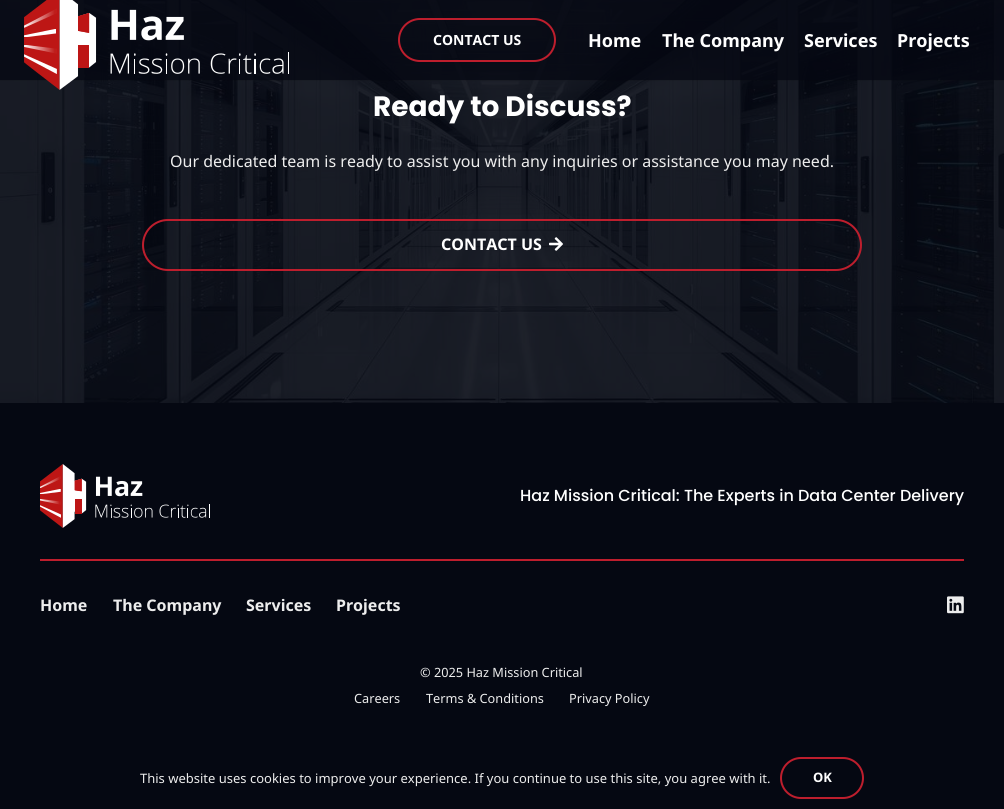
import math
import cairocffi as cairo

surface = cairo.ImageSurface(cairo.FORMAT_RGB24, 1004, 809)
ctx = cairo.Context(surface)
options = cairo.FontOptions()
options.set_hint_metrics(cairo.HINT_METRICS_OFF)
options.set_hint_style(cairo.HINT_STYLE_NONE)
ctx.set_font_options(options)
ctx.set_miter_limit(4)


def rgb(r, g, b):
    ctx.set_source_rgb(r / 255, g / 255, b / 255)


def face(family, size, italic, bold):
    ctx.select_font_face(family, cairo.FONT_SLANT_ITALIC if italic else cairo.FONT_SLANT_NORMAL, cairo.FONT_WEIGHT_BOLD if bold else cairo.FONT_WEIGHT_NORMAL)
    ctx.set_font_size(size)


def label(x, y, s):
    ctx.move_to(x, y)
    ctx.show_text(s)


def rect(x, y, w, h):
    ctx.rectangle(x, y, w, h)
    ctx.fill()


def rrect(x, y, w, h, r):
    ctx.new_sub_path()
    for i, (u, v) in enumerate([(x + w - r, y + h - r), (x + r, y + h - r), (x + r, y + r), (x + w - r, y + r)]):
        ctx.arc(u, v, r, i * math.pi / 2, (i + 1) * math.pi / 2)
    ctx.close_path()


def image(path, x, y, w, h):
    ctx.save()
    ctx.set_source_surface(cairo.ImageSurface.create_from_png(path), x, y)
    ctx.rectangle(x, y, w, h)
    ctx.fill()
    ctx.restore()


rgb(5, 8, 18)
ctx.paint()
image('image1.png', 0, 0, 1004, 403)
ctx.set_source_rgba(0, 0, 0, 0.08)
rect(0, 80, 1004, 1)
ctx.set_source_rgba(0.02, 0.031, 0.071, 0.75)
rect(0, 0, 1004, 80)
image('image0.png', 24, 0, 265, 90)
rrect(399, 19, 156, 42, 21)
rgb(190, 30, 45)
ctx.stroke()
face('Noto Sans', 14, 0, 1)
rgb(255, 255, 255)
label(433, 45, 'CONTACT US')
face('Noto Sans', 18, 0, 1)
label(588, 47, 'Home')
label(662, 47, 'The Company')
label(804, 47, 'Services')
label(897, 47, 'Projects')
face('Poppins', 28, 0, 1)
label(373, 116, 'Ready to Discuss?')
face('Noto Sans', 16, 0, 0)
rgb(237, 237, 237)
label(170, 167, 'Our dedicated team is ready to assist you with any inquiries or assistance you may need.')
rrect(143, 220, 718, 50, 25)
rgb(190, 30, 45)
ctx.stroke()
face('Noto Sans', 16, 0, 1)
rgb(255, 255, 255)
label(441, 250, 'CONTACT US')
image('image2.png', 549, 237, 14, 14)
image('image3.png', 40, 464, 170, 64)
face('Poppins Medium', 16, 0, 0)
label(520, 501, 'Haz Mission Critical: The Experts in Data Center Delivery')
rgb(190, 30, 45)
rect(40, 559, 924, 2)
face('Noto Sans', 16, 0, 1)
rgb(237, 237, 237)
label(40, 611, 'Home')
label(113, 611, 'The Company')
label(246, 611, 'Services')
label(336, 611, 'Projects')
image('image4.png', 947, 596, 17, 18)
face('Noto Sans', 12.75, 0, 0)
label(420, 677, '© 2025 Haz Mission Critical')
label(354, 703, 'Careers')
label(426, 703, 'Terms & Conditions')
label(569, 703, 'Privacy Policy')
face('Noto Sans', 13, 0, 0)
label(140, 783, 'This website uses cookies to improve your experience. If you continue to use this site, you agree with it.')
rrect(781, 758, 82, 40, 20)
rgb(190, 30, 45)
ctx.stroke()
face('Noto Sans', 13, 0, 1)
rgb(255, 255, 255)
label(813, 782, 'OK')
surface.write_to_png('render.png')
